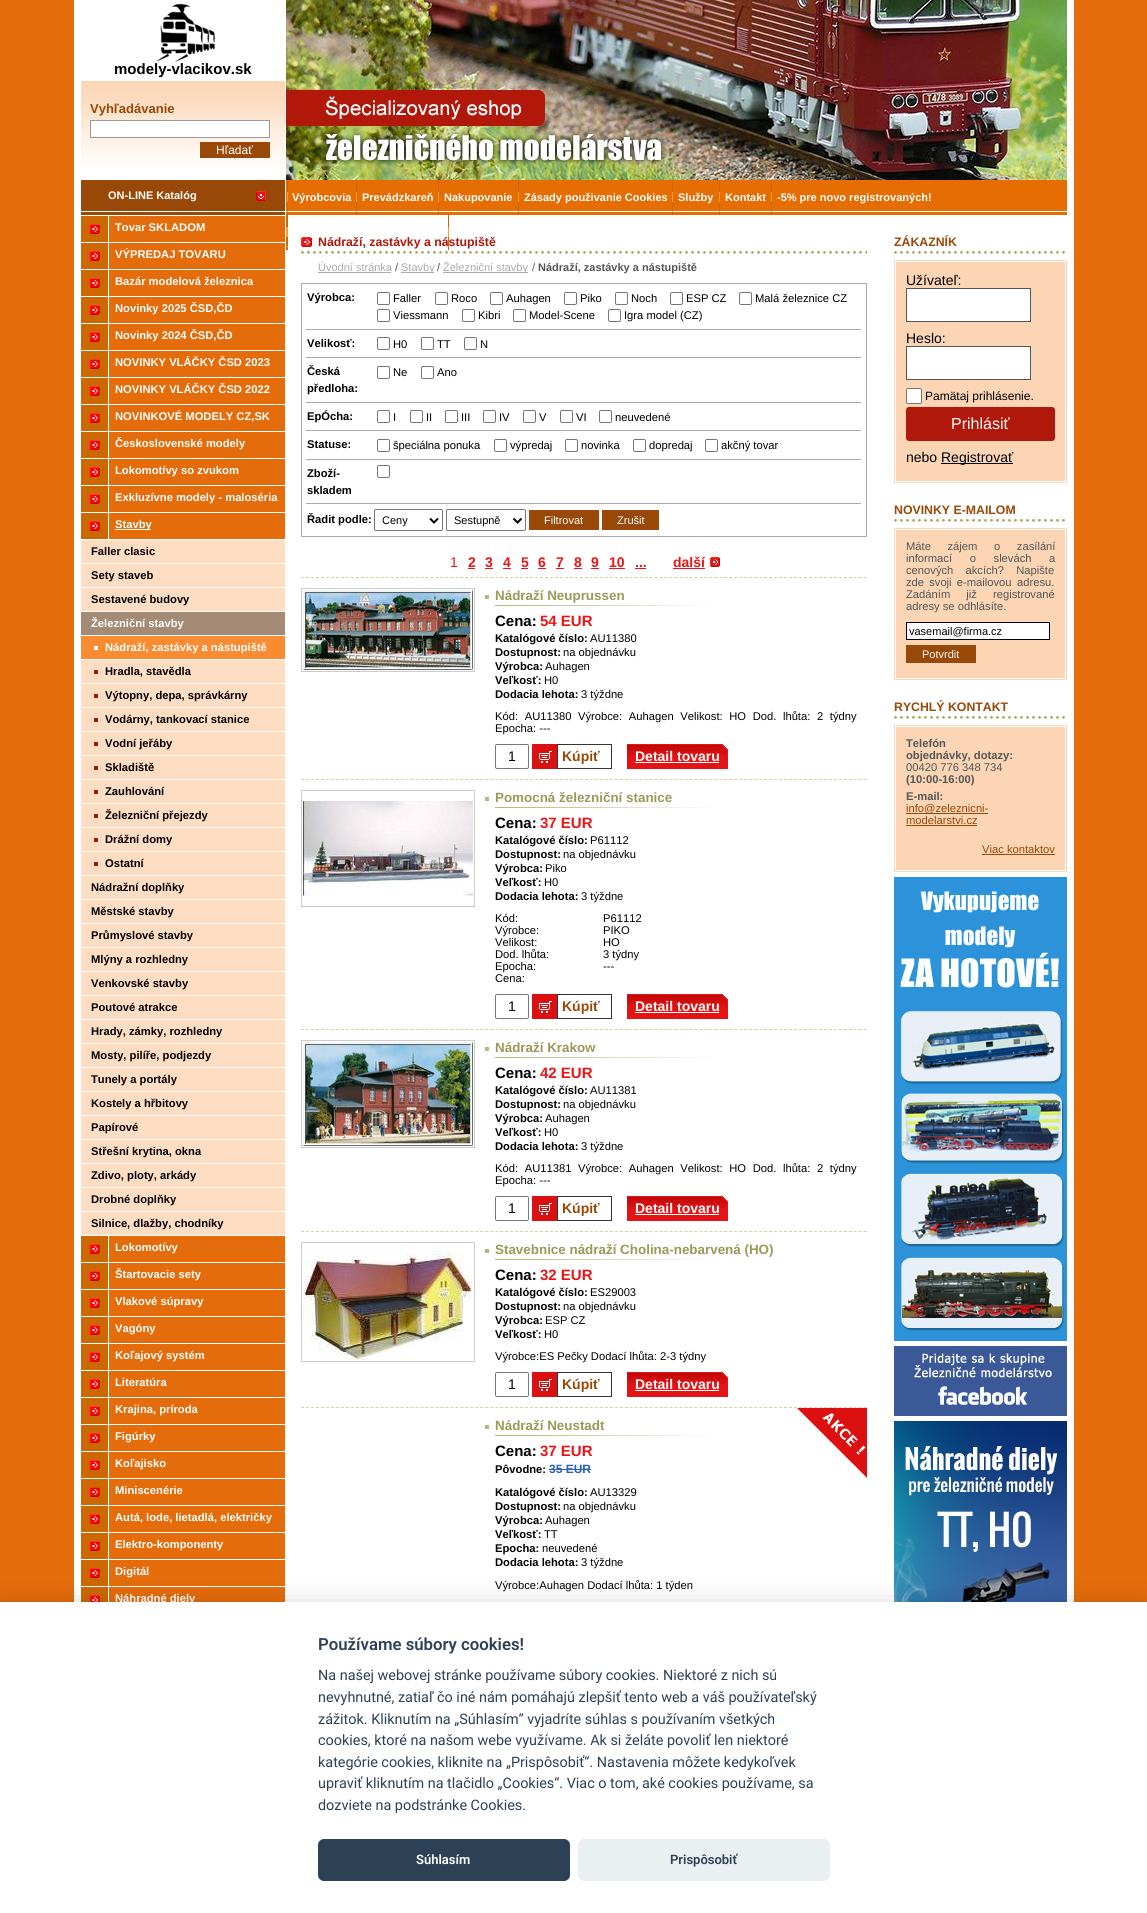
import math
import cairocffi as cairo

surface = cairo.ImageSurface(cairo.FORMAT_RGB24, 1147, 1913)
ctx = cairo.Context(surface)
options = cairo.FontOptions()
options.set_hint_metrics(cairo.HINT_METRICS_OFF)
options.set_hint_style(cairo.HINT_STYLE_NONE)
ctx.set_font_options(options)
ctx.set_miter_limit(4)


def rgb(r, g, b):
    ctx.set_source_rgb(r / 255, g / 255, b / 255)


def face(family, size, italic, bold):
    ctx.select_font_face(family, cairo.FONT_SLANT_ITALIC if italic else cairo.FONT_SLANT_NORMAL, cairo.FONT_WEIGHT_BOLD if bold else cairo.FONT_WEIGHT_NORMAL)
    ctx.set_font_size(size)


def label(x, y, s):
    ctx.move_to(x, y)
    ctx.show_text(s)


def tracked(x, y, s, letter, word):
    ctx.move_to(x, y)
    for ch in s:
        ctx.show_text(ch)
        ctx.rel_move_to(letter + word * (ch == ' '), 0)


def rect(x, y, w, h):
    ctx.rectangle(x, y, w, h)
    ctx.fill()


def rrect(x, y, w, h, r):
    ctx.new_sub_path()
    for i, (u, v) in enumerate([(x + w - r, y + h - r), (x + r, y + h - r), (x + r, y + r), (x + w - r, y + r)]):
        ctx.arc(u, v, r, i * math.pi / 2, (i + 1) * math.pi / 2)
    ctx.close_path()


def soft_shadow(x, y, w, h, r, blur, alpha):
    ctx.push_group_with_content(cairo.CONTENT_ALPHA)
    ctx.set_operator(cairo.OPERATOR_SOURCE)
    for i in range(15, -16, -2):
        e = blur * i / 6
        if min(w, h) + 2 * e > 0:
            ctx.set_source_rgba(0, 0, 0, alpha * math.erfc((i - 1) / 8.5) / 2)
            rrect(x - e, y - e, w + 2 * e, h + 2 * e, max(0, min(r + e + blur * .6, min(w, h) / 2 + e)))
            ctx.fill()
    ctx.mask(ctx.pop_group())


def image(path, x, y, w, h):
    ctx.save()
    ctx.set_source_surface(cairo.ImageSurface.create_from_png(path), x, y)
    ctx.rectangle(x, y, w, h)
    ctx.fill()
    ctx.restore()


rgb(228, 108, 10)
ctx.paint()
rgb(255, 255, 255)
rect(74, 0, 1000, 1602)
image('image0.png', 156, 3, 59, 60)
face('Liberation Sans', 15, 0, 1)
rgb(0, 0, 0)
label(114, 74, 'modely-vlacikov.sk')
image('image1.png', 81, 81, 204, 87)
face('Liberation Sans', 13, 0, 1)
rgb(152, 72, 7)
label(90, 113, 'Vyhľadávanie')
rgb(255, 255, 255)
ctx.rectangle(90.5, 120.5, 179, 17)
ctx.fill_preserve()
rgb(152, 152, 152)
ctx.set_line_width(1)
ctx.stroke()
rgb(152, 72, 7)
rect(200, 142, 70, 16)
face('Liberation Sans', 12, 0, 0)
rgb(255, 255, 255)
label(216, 154, 'Hľadať')
rgb(152, 72, 7)
rect(81, 180, 204, 31)
image('image2.png', 256, 191, 10, 10)
face('Liberation Sans', 11, 0, 1)
rgb(255, 255, 255)
label(108, 199, 'ON-LINE Katalóg')
rgb(152, 72, 7)
rect(81, 212, 204, 3)
image('image3.png', 286, 0, 781, 180)
image('image4.png', 288, 180, 779, 35)
image('image5.png', 286, 180, 1, 35)
image('image6.png', 287, 180, 1, 35)
rgb(255, 255, 255)
label(292, 201, 'Výrobcovia')
image('image6.png', 356, 180, 1, 35)
label(362, 201, 'Prevádzkareň')
image('image6.png', 438, 180, 1, 35)
label(444, 201, 'Nakupovanie')
image('image6.png', 518, 180, 1, 35)
label(524, 201, 'Zásady použivanie Cookies')
image('image6.png', 672, 180, 1, 35)
label(678, 201, 'Služby')
image('image6.png', 719, 180, 1, 35)
label(725, 201, 'Kontakt')
image('image6.png', 771, 180, 1, 35)
label(777, 201, '-5% pre novo registrovaných!')
image('image7.png', 286, 215, 2, 35)
face('Liberation Sans', 12.3, 0, 1)
rgb(176, 24, 11)
label(318, 246, 'Nádraží, zastávky a nástupiště')
image('image6.png', 448, 215, 1, 35)
rgb(228, 108, 10)
rect(109, 216, 176, 26)
image('image8.png', 81, 216, 28, 26)
face('Liberation Sans', 11.2, 0, 1)
rgb(255, 255, 255)
label(115, 231, 'Tovar SKLADOM')
rgb(228, 108, 10)
rect(109, 243, 176, 26)
image('image8.png', 81, 243, 28, 26)
rgb(255, 255, 255)
label(115, 258, 'VÝPREDAJ TOVARU')
rgb(228, 108, 10)
rect(109, 270, 176, 26)
image('image8.png', 81, 270, 28, 26)
rgb(255, 255, 255)
label(115, 285, 'Bazár modelová železnica')
rgb(228, 108, 10)
rect(109, 297, 176, 26)
image('image8.png', 81, 297, 28, 26)
rgb(255, 255, 255)
label(115, 312, 'Novinky 2025 ČSD,ČD')
rgb(228, 108, 10)
rect(109, 324, 176, 26)
image('image8.png', 81, 324, 28, 26)
rgb(255, 255, 255)
label(115, 339, 'Novinky 2024 ČSD,ČD')
rgb(228, 108, 10)
rect(109, 351, 176, 26)
image('image8.png', 81, 351, 28, 26)
rgb(255, 255, 255)
label(115, 366, 'NOVINKY VLÁČKY ČSD 2023')
rgb(228, 108, 10)
rect(109, 378, 176, 26)
image('image8.png', 81, 378, 28, 26)
rgb(255, 255, 255)
label(115, 393, 'NOVINKY VLÁČKY ČSD 2022')
rgb(228, 108, 10)
rect(109, 405, 176, 26)
image('image8.png', 81, 405, 28, 26)
rgb(255, 255, 255)
label(115, 420, 'NOVINKOVÉ MODELY CZ,SK')
rgb(228, 108, 10)
rect(109, 432, 176, 26)
image('image8.png', 81, 432, 28, 26)
rgb(255, 255, 255)
label(115, 447, 'Československé modely')
rgb(228, 108, 10)
rect(109, 459, 176, 26)
image('image8.png', 81, 459, 28, 26)
rgb(255, 255, 255)
label(115, 474, 'Lokomotívy so zvukom')
rgb(228, 108, 10)
rect(109, 486, 176, 26)
image('image8.png', 81, 486, 28, 26)
rgb(255, 255, 255)
label(115, 501, 'Exkluzívne modely - maloséria')
rgb(228, 108, 10)
rect(109, 513, 176, 26)
image('image8.png', 81, 513, 28, 26)
rgb(255, 255, 255)
rect(115, 529, 36, 1)
label(115, 528, 'Stavby')
rgb(255, 221, 194)
rect(81, 540, 204, 23)
rgb(0, 0, 0)
label(91, 555, 'Faller clasic')
rgb(255, 221, 194)
rect(81, 564, 204, 23)
rgb(0, 0, 0)
label(91, 579, 'Sety staveb')
rgb(255, 221, 194)
rect(81, 588, 204, 23)
rgb(0, 0, 0)
label(91, 603, 'Sestavené budovy')
rgb(165, 138, 118)
rect(81, 612, 204, 23)
rgb(255, 255, 255)
label(91, 627, 'Železniční stavby')
rgb(250, 139, 49)
rect(81, 636, 204, 23)
rgb(255, 255, 255)
rect(94, 646, 4, 4)
label(105, 651, 'Nádraží, zastávky a nástupiště')
rgb(255, 221, 194)
rect(81, 660, 204, 23)
rgb(176, 24, 11)
rect(94, 670, 4, 4)
rgb(0, 0, 0)
label(105, 675, 'Hradla, stavědla')
rgb(255, 221, 194)
rect(81, 684, 204, 23)
rgb(176, 24, 11)
rect(94, 694, 4, 4)
rgb(0, 0, 0)
label(105, 699, 'Výtopny, depa, správkárny')
rgb(255, 221, 194)
rect(81, 708, 204, 23)
rgb(176, 24, 11)
rect(94, 718, 4, 4)
rgb(0, 0, 0)
label(105, 723, 'Vodárny, tankovací stanice')
rgb(255, 221, 194)
rect(81, 732, 204, 23)
rgb(176, 24, 11)
rect(94, 742, 4, 4)
rgb(0, 0, 0)
label(105, 747, 'Vodní jeřáby')
rgb(255, 221, 194)
rect(81, 756, 204, 23)
rgb(176, 24, 11)
rect(94, 766, 4, 4)
rgb(0, 0, 0)
label(105, 771, 'Skladiště')
rgb(255, 221, 194)
rect(81, 780, 204, 23)
rgb(176, 24, 11)
rect(94, 790, 4, 4)
rgb(0, 0, 0)
label(105, 795, 'Zauhlování')
rgb(255, 221, 194)
rect(81, 804, 204, 23)
rgb(176, 24, 11)
rect(94, 814, 4, 4)
rgb(0, 0, 0)
label(105, 819, 'Železniční přejezdy')
rgb(255, 221, 194)
rect(81, 828, 204, 23)
rgb(176, 24, 11)
rect(94, 838, 4, 4)
rgb(0, 0, 0)
label(105, 843, 'Drážní domy')
rgb(255, 221, 194)
rect(81, 852, 204, 23)
rgb(176, 24, 11)
rect(94, 862, 4, 4)
rgb(0, 0, 0)
label(105, 867, 'Ostatní')
rgb(255, 221, 194)
rect(81, 876, 204, 23)
rgb(0, 0, 0)
label(91, 891, 'Nádražní doplňky')
rgb(255, 221, 194)
rect(81, 900, 204, 23)
rgb(0, 0, 0)
label(91, 915, 'Městské stavby')
rgb(255, 221, 194)
rect(81, 924, 204, 23)
rgb(0, 0, 0)
label(91, 939, 'Průmyslové stavby')
rgb(255, 221, 194)
rect(81, 948, 204, 23)
rgb(0, 0, 0)
label(91, 963, 'Mlýny a rozhledny')
rgb(255, 221, 194)
rect(81, 972, 204, 23)
rgb(0, 0, 0)
label(91, 987, 'Venkovské stavby')
rgb(255, 221, 194)
rect(81, 996, 204, 23)
rgb(0, 0, 0)
label(91, 1011, 'Poutové atrakce')
rgb(255, 221, 194)
rect(81, 1020, 204, 23)
rgb(0, 0, 0)
label(91, 1035, 'Hrady, zámky, rozhledny')
rgb(255, 221, 194)
rect(81, 1044, 204, 23)
rgb(0, 0, 0)
label(91, 1059, 'Mosty, pilíře, podjezdy')
rgb(255, 221, 194)
rect(81, 1068, 204, 23)
rgb(0, 0, 0)
label(91, 1083, 'Tunely a portály')
rgb(255, 221, 194)
rect(81, 1092, 204, 23)
rgb(0, 0, 0)
label(91, 1107, 'Kostely a hřbitovy')
rgb(255, 221, 194)
rect(81, 1116, 204, 23)
rgb(0, 0, 0)
label(91, 1131, 'Papírové')
rgb(255, 221, 194)
rect(81, 1140, 204, 23)
rgb(0, 0, 0)
label(91, 1155, 'Střešní krytina, okna')
rgb(255, 221, 194)
rect(81, 1164, 204, 23)
rgb(0, 0, 0)
label(91, 1179, 'Zdivo, ploty, arkády')
rgb(255, 221, 194)
rect(81, 1188, 204, 23)
rgb(0, 0, 0)
label(91, 1203, 'Drobné doplňky')
rgb(255, 221, 194)
rect(81, 1212, 204, 23)
rgb(0, 0, 0)
label(91, 1227, 'Silnice, dlažby, chodníky')
rgb(228, 108, 10)
rect(109, 1236, 176, 26)
image('image8.png', 81, 1236, 28, 26)
rgb(255, 255, 255)
label(115, 1251, 'Lokomotívy')
rgb(228, 108, 10)
rect(109, 1263, 176, 26)
image('image8.png', 81, 1263, 28, 26)
rgb(255, 255, 255)
label(115, 1278, 'Štartovacie sety')
rgb(228, 108, 10)
rect(109, 1290, 176, 26)
image('image8.png', 81, 1290, 28, 26)
rgb(255, 255, 255)
label(115, 1305, 'Vlakové súpravy')
rgb(228, 108, 10)
rect(109, 1317, 176, 26)
image('image8.png', 81, 1317, 28, 26)
rgb(255, 255, 255)
label(115, 1332, 'Vagóny')
rgb(228, 108, 10)
rect(109, 1344, 176, 26)
image('image8.png', 81, 1344, 28, 26)
rgb(255, 255, 255)
label(115, 1359, 'Koľajový systém')
rgb(228, 108, 10)
rect(109, 1371, 176, 26)
image('image8.png', 81, 1371, 28, 26)
rgb(255, 255, 255)
label(115, 1386, 'Literatúra')
rgb(228, 108, 10)
rect(109, 1398, 176, 26)
image('image8.png', 81, 1398, 28, 26)
rgb(255, 255, 255)
label(115, 1413, 'Krajina, príroda')
rgb(228, 108, 10)
rect(109, 1425, 176, 26)
image('image8.png', 81, 1425, 28, 26)
rgb(255, 255, 255)
label(115, 1440, 'Figúrky')
rgb(228, 108, 10)
rect(109, 1452, 176, 26)
image('image8.png', 81, 1452, 28, 26)
rgb(255, 255, 255)
label(115, 1467, 'Koľajisko')
rgb(228, 108, 10)
rect(109, 1479, 176, 26)
image('image8.png', 81, 1479, 28, 26)
rgb(255, 255, 255)
label(115, 1494, 'Miniscenérie')
rgb(228, 108, 10)
rect(109, 1506, 176, 26)
image('image8.png', 81, 1506, 28, 26)
rgb(255, 255, 255)
label(115, 1521, 'Autá, lode, lietadlá, električky')
rgb(228, 108, 10)
rect(109, 1533, 176, 26)
image('image8.png', 81, 1533, 28, 26)
rgb(255, 255, 255)
label(115, 1548, 'Elektro-komponenty')
rgb(228, 108, 10)
rect(109, 1560, 176, 26)
image('image8.png', 81, 1560, 28, 26)
rgb(255, 255, 255)
label(115, 1575, 'Digitál')
rgb(228, 108, 10)
rect(109, 1587, 176, 15)
image('image9.png', 81, 1587, 28, 15)
rgb(255, 255, 255)
label(115, 1602, 'Náhradné diely')
image('image10.png', 301, 237, 11, 10)
image('image11.png', 301, 251, 566, 3)
face('Liberation Sans', 11, 0, 0)
rgb(170, 170, 170)
label(318, 271, 'Úvodní stránka')
rect(318, 272, 73, 1)
rgb(85, 85, 85)
label(395, 271, '/')
rgb(170, 170, 170)
rect(401, 272, 33, 1)
label(401, 271, 'Stavby')
rgb(85, 85, 85)
label(437, 271, '/')
rgb(170, 170, 170)
rect(443, 272, 85, 1)
label(443, 271, 'Železniční stavby')
rgb(85, 85, 85)
label(532, 271, '/')
face('Liberation Sans', 11, 0, 1)
label(538, 271, 'Nádraží, zastávky a nástupiště')
ctx.rectangle(301.5, 283.5, 565, 253)
rgb(170, 170, 170)
ctx.stroke()
face('Liberation Sans', 11.2, 0, 1)
rgb(0, 0, 0)
label(307, 301, 'Výrobca:')
rgb(170, 170, 170)
rect(306, 329, 555, 1)
rrect(377.5, 292.5, 12, 12, 1.5)
rgb(118, 118, 118)
ctx.stroke()
face('Liberation Sans', 11.2, 0, 0)
rgb(0, 0, 0)
label(393, 302, 'Faller')
rrect(435.5, 292.5, 12, 12, 1.5)
rgb(118, 118, 118)
ctx.stroke()
rgb(0, 0, 0)
label(451, 302, 'Roco')
rrect(490.5, 292.5, 12, 12, 1.5)
rgb(118, 118, 118)
ctx.stroke()
rgb(0, 0, 0)
label(506, 302, 'Auhagen')
rrect(564.5, 292.5, 12, 12, 1.5)
rgb(118, 118, 118)
ctx.stroke()
rgb(0, 0, 0)
label(580, 302, 'Piko')
rrect(615.5, 292.5, 12, 12, 1.5)
rgb(118, 118, 118)
ctx.stroke()
rgb(0, 0, 0)
label(631, 302, 'Noch')
rrect(670.5, 292.5, 12, 12, 1.5)
rgb(118, 118, 118)
ctx.stroke()
rgb(0, 0, 0)
label(686, 302, 'ESP CZ')
rrect(739.5, 292.5, 12, 12, 1.5)
rgb(118, 118, 118)
ctx.stroke()
rgb(0, 0, 0)
label(755, 302, 'Malá železnice CZ')
rrect(377.5, 309.5, 12, 12, 1.5)
rgb(118, 118, 118)
ctx.stroke()
rgb(0, 0, 0)
label(393, 319, 'Viessmann')
rrect(462.5, 309.5, 12, 12, 1.5)
rgb(118, 118, 118)
ctx.stroke()
rgb(0, 0, 0)
label(478, 319, 'Kibri')
rrect(513.5, 309.5, 12, 12, 1.5)
rgb(118, 118, 118)
ctx.stroke()
rgb(0, 0, 0)
label(529, 319, 'Model-Scene')
rrect(608.5, 309.5, 12, 12, 1.5)
rgb(118, 118, 118)
ctx.stroke()
rgb(0, 0, 0)
label(624, 319, 'Igra model (CZ)')
face('Liberation Sans', 11.2, 0, 1)
label(307, 347, 'Velikosť:')
rgb(170, 170, 170)
rect(306, 357, 555, 1)
rrect(377.5, 337.5, 12, 12, 1.5)
rgb(118, 118, 118)
ctx.stroke()
face('Liberation Sans', 11.2, 0, 0)
rgb(0, 0, 0)
label(393, 348, 'H0')
rrect(421.5, 337.5, 12, 12, 1.5)
rgb(118, 118, 118)
ctx.stroke()
rgb(0, 0, 0)
label(437, 348, 'TT')
rrect(464.5, 337.5, 12, 12, 1.5)
rgb(118, 118, 118)
ctx.stroke()
rgb(0, 0, 0)
label(480, 348, 'N')
face('Liberation Sans', 11.2, 0, 1)
label(307, 375, 'Česká')
label(307, 392, 'předloha:')
rgb(170, 170, 170)
rect(306, 402, 555, 1)
rrect(377.5, 366.5, 12, 12, 1.5)
rgb(118, 118, 118)
ctx.stroke()
face('Liberation Sans', 11.2, 0, 0)
rgb(0, 0, 0)
label(393, 376, 'Ne')
rrect(421.5, 366.5, 12, 12, 1.5)
rgb(118, 118, 118)
ctx.stroke()
rgb(0, 0, 0)
label(437, 376, 'Ano')
face('Liberation Sans', 11.2, 0, 1)
label(307, 420, 'EpÓcha:')
rgb(170, 170, 170)
rect(306, 430, 555, 1)
rrect(377.5, 410.5, 12, 12, 1.5)
rgb(118, 118, 118)
ctx.stroke()
face('Liberation Sans', 11.2, 0, 0)
rgb(0, 0, 0)
label(393, 421, 'I')
rrect(410.5, 410.5, 12, 12, 1.5)
rgb(118, 118, 118)
ctx.stroke()
rgb(0, 0, 0)
label(426, 421, 'II')
rrect(445.5, 410.5, 12, 12, 1.5)
rgb(118, 118, 118)
ctx.stroke()
rgb(0, 0, 0)
label(461, 421, 'III')
rrect(483.5, 410.5, 12, 12, 1.5)
rgb(118, 118, 118)
ctx.stroke()
rgb(0, 0, 0)
label(499, 421, 'IV')
rrect(523.5, 410.5, 12, 12, 1.5)
rgb(118, 118, 118)
ctx.stroke()
rgb(0, 0, 0)
label(539, 421, 'V')
rrect(560.5, 410.5, 12, 12, 1.5)
rgb(118, 118, 118)
ctx.stroke()
rgb(0, 0, 0)
label(576, 421, 'VI')
rrect(599.5, 410.5, 12, 12, 1.5)
rgb(118, 118, 118)
ctx.stroke()
rgb(0, 0, 0)
label(615, 421, 'neuvedené')
face('Liberation Sans', 11.2, 0, 1)
label(307, 448, 'Statuse:')
rgb(170, 170, 170)
rect(306, 459, 555, 1)
rrect(377.5, 439.5, 12, 12, 1.5)
rgb(118, 118, 118)
ctx.stroke()
face('Liberation Sans', 11.2, 0, 0)
rgb(0, 0, 0)
label(393, 449, 'špeciálna ponuka')
rrect(494.5, 439.5, 12, 12, 1.5)
rgb(118, 118, 118)
ctx.stroke()
rgb(0, 0, 0)
label(510, 449, 'výpredaj')
rrect(565.5, 439.5, 12, 12, 1.5)
rgb(118, 118, 118)
ctx.stroke()
rgb(0, 0, 0)
label(581, 449, 'novinka')
rrect(633.5, 439.5, 12, 12, 1.5)
rgb(118, 118, 118)
ctx.stroke()
rgb(0, 0, 0)
label(649, 449, 'dopredaj')
rrect(705.5, 439.5, 12, 12, 1.5)
rgb(118, 118, 118)
ctx.stroke()
rgb(0, 0, 0)
label(721, 449, 'akčný tovar')
rgb(170, 170, 170)
rect(306, 503, 555, 1)
rrect(377.5, 465.5, 12, 12, 1.5)
rgb(118, 118, 118)
ctx.stroke()
face('Liberation Sans', 11.2, 0, 1)
rgb(0, 0, 0)
label(307, 477, 'Zboží-')
label(307, 494, 'skladem')
label(307, 523, 'Řadit podle:')
rrect(374.5, 509.5, 68, 21, 1.5)
rgb(118, 118, 118)
ctx.stroke()
ctx.new_path()
ctx.move_to(430, 518.5)
ctx.line_to(434, 522.5)
ctx.line_to(438, 518.5)
rgb(0, 0, 0)
ctx.set_line_width(2)
ctx.stroke()
face('Liberation Sans', 11, 0, 0)
label(382, 524, 'Ceny')
rrect(446.5, 509.5, 79, 21, 1.5)
rgb(118, 118, 118)
ctx.set_line_width(1)
ctx.stroke()
ctx.new_path()
ctx.move_to(513.5, 518.5)
ctx.line_to(517.5, 522.5)
ctx.line_to(521.5, 518.5)
rgb(0, 0, 0)
ctx.set_line_width(2)
ctx.stroke()
label(454, 524, 'Sestupně')
rgb(152, 72, 7)
rect(529, 510, 70, 20)
rgb(255, 255, 255)
label(544, 524, 'Filtrovat')
rgb(152, 72, 7)
rect(602, 510, 57, 20)
rgb(255, 255, 255)
label(617, 524, 'Zrušit')
face('Liberation Sans', 14, 0, 0)
rgb(233, 21, 21)
label(450, 567, '1')
face('Liberation Sans', 14, 0, 1)
label(468, 567, '2')
rect(468, 568, 7, 1)
label(485, 567, '3')
rect(485, 568, 8, 1)
label(503, 567, '4')
rect(503, 568, 8, 1)
label(521, 567, '5')
rect(521, 568, 7, 1)
label(538, 567, '6')
rect(538, 568, 8, 1)
label(556, 567, '7')
rect(556, 568, 8, 1)
label(574, 567, '8')
rect(574, 568, 8, 1)
label(591, 567, '9')
rect(591, 568, 8, 1)
label(609, 567, '10')
rect(609, 568, 16, 1)
label(635, 567, '...')
rect(635, 568, 11, 1)
label(673, 567, 'další')
rect(673, 568, 32, 1)
image('image12.png', 710, 557, 10, 10)
ctx.new_path()
ctx.move_to(301, 577.5)
ctx.line_to(867, 577.5)
rgb(220, 208, 154)
ctx.set_line_width(1)
ctx.set_dash([3, 1.98])
ctx.stroke()
ctx.rectangle(301.5, 588.5, 173, 83)
rgb(204, 204, 204)
ctx.set_dash([])
ctx.stroke()
image('image13.png', 303, 590, 170, 80)
rgb(184, 183, 126)
rect(485, 595, 4, 4)
face('Liberation Sans', 13.4, 0, 1)
rgb(154, 153, 89)
label(495, 600, 'Nádraží Neuprussen')
image('image14.png', 495, 605, 221, 1)
face('Liberation Sans', 15, 0, 1)
rgb(0, 0, 0)
label(495, 626, 'Cena:')
rgb(233, 21, 21)
label(540, 626, '54 EUR')
face('Liberation Sans', 11.2, 0, 1)
rgb(0, 0, 0)
label(495, 642, 'Katalógové číslo:')
face('Liberation Sans', 11.2, 0, 0)
label(590, 642, 'AU11380')
face('Liberation Sans', 11.2, 0, 1)
label(495, 656, 'Dostupnost:')
face('Liberation Sans', 11.2, 0, 0)
label(563, 656, 'na objednávku')
face('Liberation Sans', 11.2, 0, 1)
label(495, 670, 'Výrobca:')
face('Liberation Sans', 11.2, 0, 0)
label(545, 670, 'Auhagen')
face('Liberation Sans', 11.2, 0, 1)
label(495, 684, 'Veľkosť:')
face('Liberation Sans', 11.2, 0, 0)
label(544, 684, 'H0')
face('Liberation Sans', 11.2, 0, 1)
label(495, 698, 'Dodacia lehota:')
face('Liberation Sans', 11.2, 0, 0)
label(581, 698, '3 týždne')
tracked(495, 720, 'Kód: AU11380 Výrobce: Auhagen Velikost: HO Dod. lhůta: 2 týdny', 0, 3.5)
label(495, 732, 'Epocha: ---')
rrect(495.5, 744.5, 33, 24, 1.5)
rgb(118, 118, 118)
ctx.stroke()
face('Liberation Sans', 14, 0, 0)
rgb(0, 0, 0)
label(508, 761, '1')
image('image15.png', 532, 744, 80, 25)
face('Liberation Sans', 14, 0, 1)
rgb(152, 72, 7)
label(562, 761, 'Kúpiť')
rgb(228, 20, 20)
rect(627, 759, 101, 10)
image('image16.png', 627, 744, 101, 15)
rgb(255, 255, 255)
label(635, 761, 'Detail tovaru')
rect(635, 762, 84, 1)
ctx.new_path()
ctx.move_to(301, 779.5)
ctx.line_to(867, 779.5)
rgb(220, 208, 154)
ctx.set_dash([3, 1.98])
ctx.stroke()
ctx.rectangle(301.5, 790.5, 173, 116)
rgb(204, 204, 204)
ctx.set_dash([])
ctx.stroke()
image('image17.png', 303, 800, 170, 96)
rgb(184, 183, 126)
rect(485, 797, 4, 4)
face('Liberation Sans', 13.4, 0, 1)
rgb(154, 153, 89)
label(495, 802, 'Pomocná železniční stanice')
image('image14.png', 495, 807, 221, 1)
face('Liberation Sans', 15, 0, 1)
rgb(0, 0, 0)
label(495, 828, 'Cena:')
rgb(233, 21, 21)
label(540, 828, '37 EUR')
face('Liberation Sans', 11.2, 0, 1)
rgb(0, 0, 0)
label(495, 844, 'Katalógové číslo:')
face('Liberation Sans', 11.2, 0, 0)
label(590, 844, 'P61112')
face('Liberation Sans', 11.2, 0, 1)
label(495, 858, 'Dostupnost:')
face('Liberation Sans', 11.2, 0, 0)
label(563, 858, 'na objednávku')
face('Liberation Sans', 11.2, 0, 1)
label(495, 872, 'Výrobca:')
face('Liberation Sans', 11.2, 0, 0)
label(545, 872, 'Piko')
face('Liberation Sans', 11.2, 0, 1)
label(495, 886, 'Veľkosť:')
face('Liberation Sans', 11.2, 0, 0)
label(544, 886, 'H0')
face('Liberation Sans', 11.2, 0, 1)
label(495, 900, 'Dodacia lehota:')
face('Liberation Sans', 11.2, 0, 0)
label(581, 900, '3 týždne')
label(495, 922, 'Kód:')
label(603, 922, 'P61112')
label(495, 934, 'Výrobce:')
label(603, 934, 'PIKO')
label(495, 946, 'Velikost:')
label(603, 946, 'HO')
label(495, 958, 'Dod. lhůta:')
label(603, 958, '3 týdny')
label(495, 970, 'Epocha:')
label(603, 970, '---')
label(495, 982, 'Cena:')
rrect(495.5, 994.5, 33, 24, 1.5)
rgb(118, 118, 118)
ctx.stroke()
face('Liberation Sans', 14, 0, 0)
rgb(0, 0, 0)
label(508, 1011, '1')
image('image15.png', 532, 994, 80, 25)
face('Liberation Sans', 14, 0, 1)
rgb(152, 72, 7)
label(562, 1011, 'Kúpiť')
rgb(228, 20, 20)
rect(627, 1009, 101, 10)
image('image16.png', 627, 994, 101, 15)
rgb(255, 255, 255)
label(635, 1011, 'Detail tovaru')
rect(635, 1012, 84, 1)
ctx.new_path()
ctx.move_to(301, 1029.5)
ctx.line_to(867, 1029.5)
rgb(220, 208, 154)
ctx.set_dash([3, 1.98])
ctx.stroke()
ctx.rectangle(301.5, 1040.5, 173, 107)
rgb(204, 204, 204)
ctx.set_dash([])
ctx.stroke()
image('image18.png', 303, 1042, 170, 104)
rgb(184, 183, 126)
rect(485, 1047, 4, 4)
face('Liberation Sans', 13.4, 0, 1)
rgb(154, 153, 89)
label(495, 1052, 'Nádraží Krakow')
image('image14.png', 495, 1057, 221, 1)
face('Liberation Sans', 15, 0, 1)
rgb(0, 0, 0)
label(495, 1078, 'Cena:')
rgb(233, 21, 21)
label(540, 1078, '42 EUR')
face('Liberation Sans', 11.2, 0, 1)
rgb(0, 0, 0)
label(495, 1094, 'Katalógové číslo:')
face('Liberation Sans', 11.2, 0, 0)
label(590, 1094, 'AU11381')
face('Liberation Sans', 11.2, 0, 1)
label(495, 1108, 'Dostupnost:')
face('Liberation Sans', 11.2, 0, 0)
label(563, 1108, 'na objednávku')
face('Liberation Sans', 11.2, 0, 1)
label(495, 1122, 'Výrobca:')
face('Liberation Sans', 11.2, 0, 0)
label(545, 1122, 'Auhagen')
face('Liberation Sans', 11.2, 0, 1)
label(495, 1136, 'Veľkosť:')
face('Liberation Sans', 11.2, 0, 0)
label(544, 1136, 'H0')
face('Liberation Sans', 11.2, 0, 1)
label(495, 1150, 'Dodacia lehota:')
face('Liberation Sans', 11.2, 0, 0)
label(581, 1150, '3 týždne')
tracked(495, 1172, 'Kód: AU11381 Výrobce: Auhagen Velikost: HO Dod. lhůta: 2 týdny', 0, 3.5)
label(495, 1184, 'Epocha: ---')
rrect(495.5, 1196.5, 33, 24, 1.5)
rgb(118, 118, 118)
ctx.stroke()
face('Liberation Sans', 14, 0, 0)
rgb(0, 0, 0)
label(508, 1213, '1')
image('image15.png', 532, 1196, 80, 25)
face('Liberation Sans', 14, 0, 1)
rgb(152, 72, 7)
label(562, 1213, 'Kúpiť')
rgb(228, 20, 20)
rect(627, 1211, 101, 10)
image('image16.png', 627, 1196, 101, 15)
rgb(255, 255, 255)
label(635, 1213, 'Detail tovaru')
rect(635, 1214, 84, 1)
ctx.new_path()
ctx.move_to(301, 1231.5)
ctx.line_to(867, 1231.5)
rgb(220, 208, 154)
ctx.set_dash([3, 1.98])
ctx.stroke()
ctx.rectangle(301.5, 1242.5, 173, 119)
rgb(204, 204, 204)
ctx.set_dash([])
ctx.stroke()
image('image19.png', 303, 1244, 170, 116)
rgb(184, 183, 126)
rect(485, 1249, 4, 4)
face('Liberation Sans', 13.4, 0, 1)
rgb(154, 153, 89)
label(495, 1254, 'Stavebnice nádraží Cholina-nebarvená (HO)')
image('image14.png', 495, 1259, 221, 1)
face('Liberation Sans', 15, 0, 1)
rgb(0, 0, 0)
label(495, 1280, 'Cena:')
rgb(233, 21, 21)
label(540, 1280, '32 EUR')
face('Liberation Sans', 11.2, 0, 1)
rgb(0, 0, 0)
label(495, 1296, 'Katalógové číslo:')
face('Liberation Sans', 11.2, 0, 0)
label(590, 1296, 'ES29003')
face('Liberation Sans', 11.2, 0, 1)
label(495, 1310, 'Dostupnost:')
face('Liberation Sans', 11.2, 0, 0)
label(563, 1310, 'na objednávku')
face('Liberation Sans', 11.2, 0, 1)
label(495, 1324, 'Výrobca:')
face('Liberation Sans', 11.2, 0, 0)
label(545, 1324, 'ESP CZ')
face('Liberation Sans', 11.2, 0, 1)
label(495, 1338, 'Veľkosť:')
face('Liberation Sans', 11.2, 0, 0)
label(544, 1338, 'H0')
label(495, 1360, 'Výrobce:ES Pečky Dodací lhůta: 2-3 týdny')
rrect(495.5, 1372.5, 33, 24, 1.5)
rgb(118, 118, 118)
ctx.stroke()
face('Liberation Sans', 14, 0, 0)
rgb(0, 0, 0)
label(508, 1389, '1')
image('image15.png', 532, 1372, 80, 25)
face('Liberation Sans', 14, 0, 1)
rgb(152, 72, 7)
label(562, 1389, 'Kúpiť')
rgb(228, 20, 20)
rect(627, 1387, 101, 10)
image('image16.png', 627, 1372, 101, 15)
rgb(255, 255, 255)
label(635, 1389, 'Detail tovaru')
rect(635, 1390, 84, 1)
ctx.new_path()
ctx.move_to(301, 1407.5)
ctx.line_to(867, 1407.5)
rgb(220, 208, 154)
ctx.set_dash([3, 1.98])
ctx.stroke()
rgb(184, 183, 126)
rect(485, 1425, 4, 4)
face('Liberation Sans', 13.4, 0, 1)
rgb(154, 153, 89)
label(495, 1430, 'Nádraží Neustadt')
image('image14.png', 495, 1435, 221, 1)
face('Liberation Sans', 15, 0, 1)
rgb(0, 0, 0)
label(495, 1456, 'Cena:')
rgb(233, 21, 21)
label(540, 1456, '37 EUR')
face('Liberation Sans', 11.2, 0, 1)
rgb(0, 0, 0)
label(495, 1473, 'Pôvodne:')
face('Liberation Sans', 12, 0, 1)
rgb(43, 97, 187)
label(549, 1473, '35 EUR')
rect(549, 1469, 42, 1)
image('image20.png', 797, 1408, 70, 70)
face('Liberation Sans', 11.2, 0, 1)
rgb(0, 0, 0)
label(495, 1496, 'Katalógové číslo:')
face('Liberation Sans', 11.2, 0, 0)
label(590, 1496, 'AU13329')
face('Liberation Sans', 11.2, 0, 1)
label(495, 1510, 'Dostupnost:')
face('Liberation Sans', 11.2, 0, 0)
label(563, 1510, 'na objednávku')
face('Liberation Sans', 11.2, 0, 1)
label(495, 1524, 'Výrobca:')
face('Liberation Sans', 11.2, 0, 0)
label(545, 1524, 'Auhagen')
face('Liberation Sans', 11.2, 0, 1)
label(495, 1538, 'Veľkosť:')
face('Liberation Sans', 11.2, 0, 0)
label(544, 1538, 'TT')
face('Liberation Sans', 11.2, 0, 1)
label(495, 1552, 'Epocha:')
face('Liberation Sans', 11.2, 0, 0)
label(542, 1552, 'neuvedené')
face('Liberation Sans', 11.2, 0, 1)
label(495, 1566, 'Dodacia lehota:')
face('Liberation Sans', 11.2, 0, 0)
label(581, 1566, '3 týždne')
label(495, 1589, 'Výrobce:Auhagen Dodací lhůta: 1 týden')
face('Liberation Sans', 12.3, 0, 1)
rgb(152, 72, 7)
label(894, 246, 'ZÁKAZNÍK')
image('image21.png', 894, 251, 173, 3)
rgb(252, 213, 181)
rect(894, 260, 173, 223)
ctx.rectangle(895.5, 261.5, 170, 220)
rgb(255, 255, 255)
ctx.set_dash([])
ctx.stroke()
face('Liberation Sans', 14, 0, 0)
rgb(0, 0, 0)
label(906, 285, 'Užívateľ:')
rgb(255, 255, 255)
ctx.rectangle(906.5, 288.5, 124, 33)
ctx.fill_preserve()
rgb(85, 85, 85)
ctx.stroke()
rgb(0, 0, 0)
label(906, 343, 'Heslo:')
rgb(255, 255, 255)
ctx.rectangle(906.5, 346.5, 124, 33)
ctx.fill_preserve()
rgb(85, 85, 85)
ctx.stroke()
rgb(255, 255, 255)
rrect(906.5, 388.5, 15, 15, 1.5)
ctx.fill_preserve()
rgb(118, 118, 118)
ctx.stroke()
face('Liberation Sans', 12, 0, 0)
rgb(0, 0, 0)
label(925, 400, 'Pamätaj prihlásenie.')
rgb(176, 24, 11)
rrect(906, 407, 149, 34, 3)
ctx.fill()
face('Liberation Sans', 16, 0, 0)
rgb(255, 255, 255)
label(951, 429, 'Prihlásiť')
face('Liberation Sans', 14, 0, 0)
rgb(0, 0, 0)
label(906, 462, 'nebo')
rect(941, 463, 72, 1)
label(941, 462, 'Registrovať')
face('Liberation Sans', 12.3, 0, 1)
rgb(152, 72, 7)
label(894, 514, 'NOVINKY E-MAILOM')
image('image21.png', 894, 519, 173, 3)
rgb(252, 213, 181)
rect(894, 528, 173, 152)
ctx.rectangle(895.5, 529.5, 170, 149)
rgb(255, 255, 255)
ctx.stroke()
face('Liberation Sans', 11.2, 0, 0)
rgb(85, 85, 85)
tracked(906, 550, 'Máte zájem o zasílání', 0, 13.5)
tracked(906, 562, 'informací o slevách a', 0, 14.5)
tracked(906, 574, 'cenových akcích? Napište', 0, 9)
tracked(906, 586, 'zde svoji e-mailovou', 0, 2)
label(1017, 586, 'adresu.')
tracked(906, 598, 'Zadáním již registrované', 0, 13)
label(906, 610, 'adresy se odhlásíte.')
rgb(255, 255, 255)
ctx.rectangle(906.5, 622.5, 143, 17)
ctx.fill_preserve()
rgb(0, 0, 0)
ctx.stroke()
face('Liberation Sans', 11, 0, 0)
label(909, 635, 'vasemail@firma.cz')
rgb(152, 72, 7)
rect(906, 645, 70, 18)
rgb(255, 255, 255)
label(922, 658, 'Potvrdit')
face('Liberation Sans', 12.3, 0, 1)
rgb(152, 72, 7)
label(894, 711, 'RYCHLÝ KONTAKT')
image('image21.png', 894, 716, 173, 3)
rgb(252, 213, 181)
rect(894, 725, 173, 147)
ctx.rectangle(895.5, 726.5, 170, 144)
rgb(255, 255, 255)
ctx.stroke()
face('Liberation Sans', 11.2, 0, 1)
rgb(85, 85, 85)
label(906, 747, 'Telefón')
label(906, 759, 'objednávky, dotazy:')
face('Liberation Sans', 11.2, 0, 0)
label(906, 771, '00420 776 348 734')
face('Liberation Sans', 11.2, 0, 1)
label(906, 783, '(10:00-16:00)')
label(906, 800, 'E-mail:')
rgb(152, 72, 7)
rect(906, 813, 82, 1)
face('Liberation Sans', 11.2, 0, 0)
label(906, 812, 'info@zeleznicni-')
label(906, 824, 'modelarstvi.cz')
rect(906, 825, 71, 1)
label(982, 853, 'Viac kontaktov')
rect(982, 854, 73, 1)
image('image22.png', 894, 877, 173, 464)
image('image23.png', 894, 1346, 173, 70)
image('image24.png', 894, 1421, 173, 181)
rgb(2, 2, 3)
soft_shadow(0, 1612, 1147, 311, 0, 15, 0.28)
rgb(255, 255, 255)
rect(0, 1602, 1147, 311)
face('Roboto SemiBold', 16.75, 0, 0)
rgb(45, 65, 86)
label(318, 1650, 'Používame súbory cookies!')
face('Roboto', 14.4, 0, 0)
label(318, 1680, 'Na našej webovej stránke používame súbory cookies. Niektoré z nich sú')
label(318, 1702, 'nevyhnutné, zatiaľ čo iné nám pomáhajú zlepšiť tento web a váš používateľský')
label(318, 1724, 'zážitok. Kliknutím na „Súhlasím“ vyjadríte súhlas s používaním všetkých')
label(318, 1745, 'cookies, ktoré na našom webe využívame. Ak si želáte povoliť len niektoré')
label(318, 1767, 'kategórie cookies, kliknite na „Prispôsobiť“. Nastavenia môžete kedykoľvek')
label(318, 1788, 'upraviť kliknutím na tlačidlo „Cookies“. Viac o tom, aké cookies používame, sa')
label(318, 1810, 'dozviete na podstránke Cookies.')
rrect(318, 1839, 252, 42, 6)
ctx.fill()
face('Roboto SemiBold', 13, 0, 0)
rgb(255, 255, 255)
label(416, 1864, 'Súhlasím')
rgb(234, 239, 242)
rrect(578, 1839, 252, 42, 6)
ctx.fill()
rgb(45, 65, 86)
label(670, 1864, 'Prispôsobiť')
surface.write_to_png('render.png')
